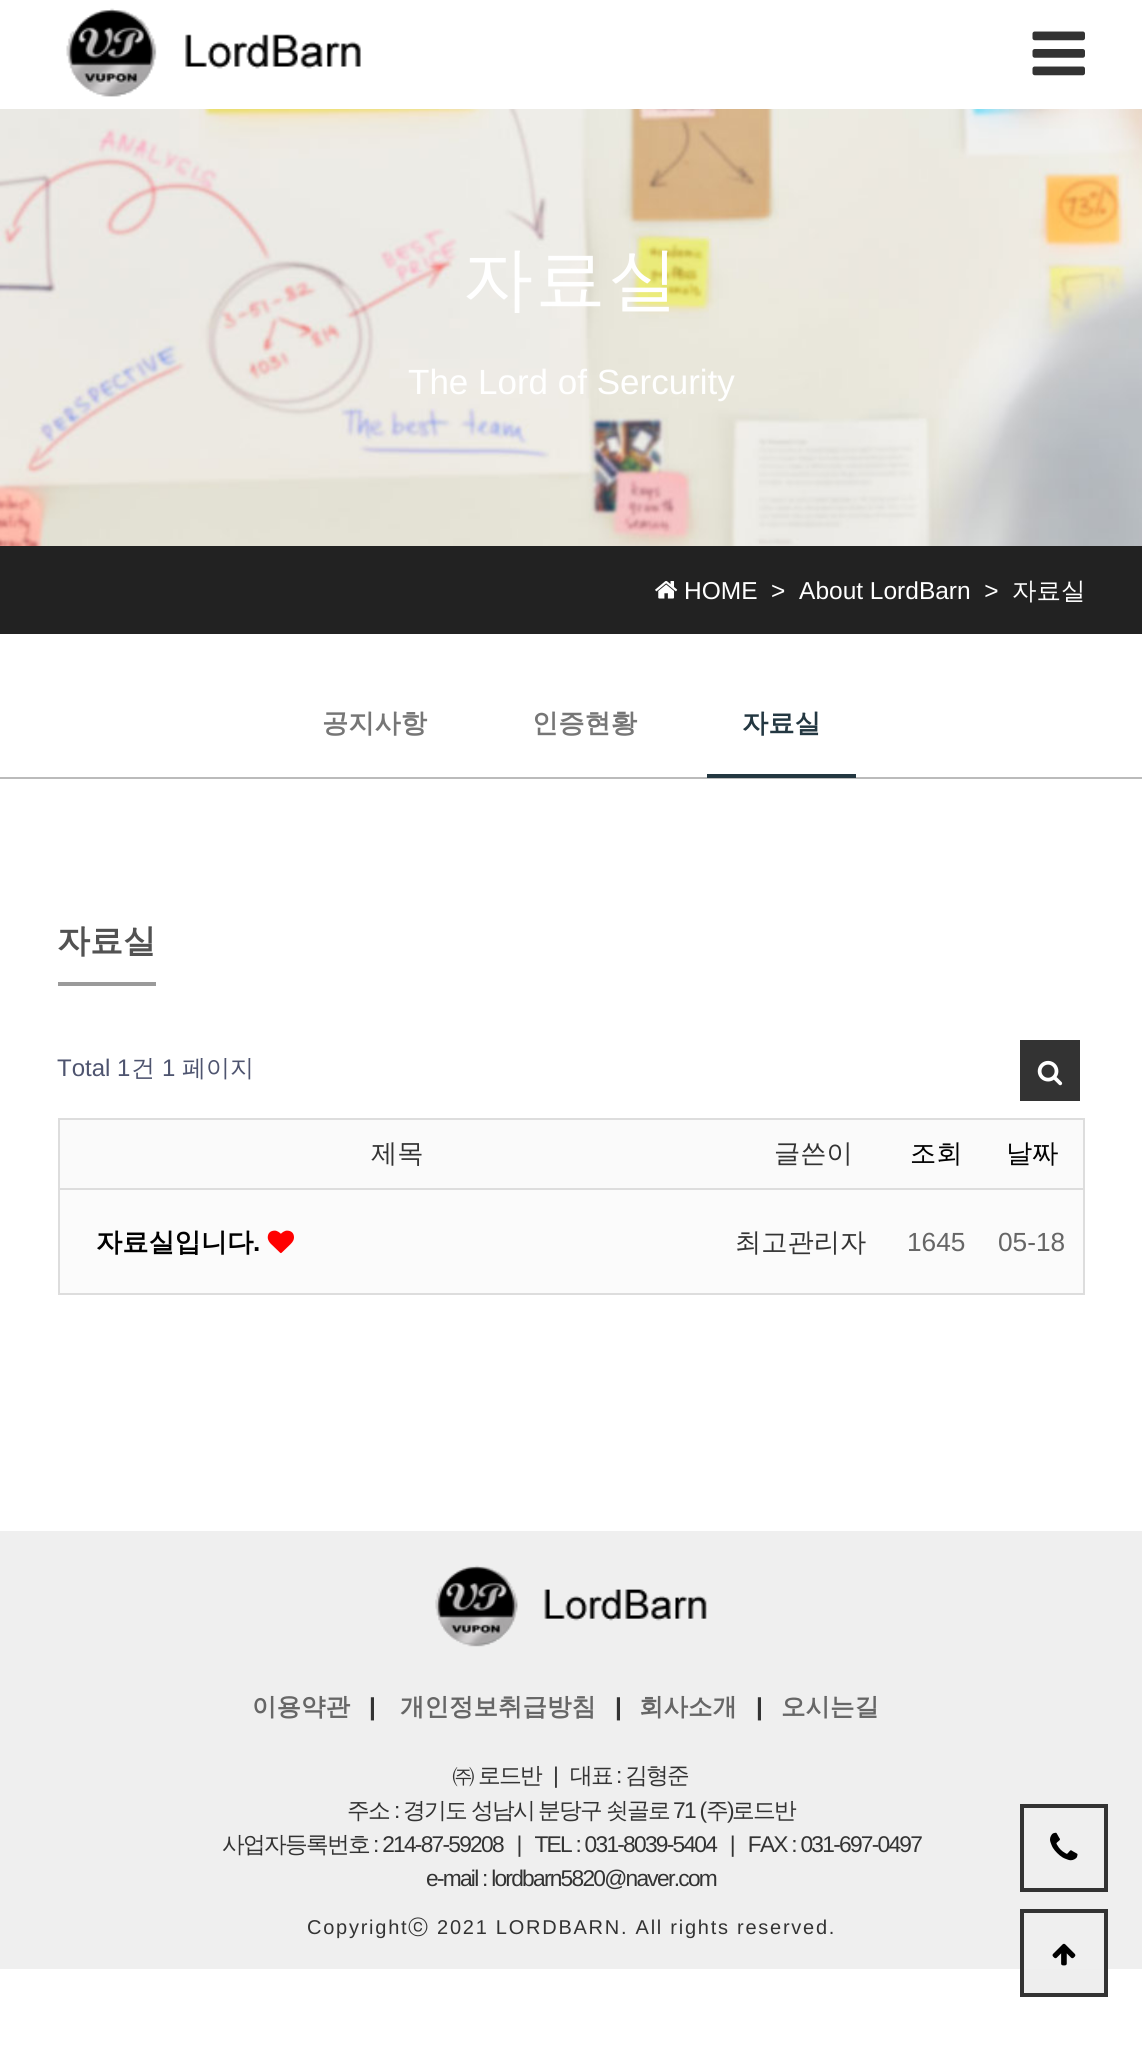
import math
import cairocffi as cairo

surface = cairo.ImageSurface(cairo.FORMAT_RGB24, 1142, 2048)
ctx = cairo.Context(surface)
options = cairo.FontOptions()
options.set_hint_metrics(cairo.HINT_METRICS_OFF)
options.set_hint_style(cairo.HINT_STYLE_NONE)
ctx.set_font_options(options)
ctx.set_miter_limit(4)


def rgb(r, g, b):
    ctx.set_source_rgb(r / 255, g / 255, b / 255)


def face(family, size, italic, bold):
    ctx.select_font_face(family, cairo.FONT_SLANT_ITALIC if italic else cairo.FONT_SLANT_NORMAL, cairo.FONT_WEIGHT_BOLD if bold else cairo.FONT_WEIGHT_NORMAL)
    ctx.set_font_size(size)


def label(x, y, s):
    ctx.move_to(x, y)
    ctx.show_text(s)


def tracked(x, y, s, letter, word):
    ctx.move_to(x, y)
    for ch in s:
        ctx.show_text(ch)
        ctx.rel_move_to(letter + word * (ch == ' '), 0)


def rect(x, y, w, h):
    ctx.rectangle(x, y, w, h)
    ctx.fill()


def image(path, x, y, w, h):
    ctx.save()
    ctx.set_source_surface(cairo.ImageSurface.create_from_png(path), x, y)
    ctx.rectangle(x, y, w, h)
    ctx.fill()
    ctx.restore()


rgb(255, 255, 255)
ctx.paint()
image('image0.png', 66, 8, 295, 89)
image('image1.png', 1032, 31, 53, 45)
image('image2.png', 0, 109, 1142, 437)
face('WenQuanYi Zen Hei Medium', 70, 0, 0)
rgb(255, 255, 255)
tracked(463, 303, '자료실', 2.5, 0)
face('Liberation Sans', 35, 0, 0)
label(408, 394, 'The Lord of Sercurity')
rgb(34, 34, 34)
rect(0, 546, 1142, 88)
image('image3.png', 655, 581, 23, 18)
face('Liberation Sans', 24.5, 0, 0)
rgb(255, 255, 255)
label(684, 599, 'HOME  >  About LordBarn  >')
face('WenQuanYi Zen Hei Medium', 24.5, 0, 0)
label(1012, 599, '자료실')
rgb(187, 187, 187)
rect(0, 777, 1142, 2)
face('WenQuanYi Zen Hei', 26.25, 0, 1)
rgb(118, 118, 118)
label(322, 732, '공지사항')
label(532, 732, '인증현황')
rgb(35, 55, 65)
rect(707, 774, 149, 4)
label(742, 732, '자료실')
rgb(154, 154, 154)
rect(58, 982, 98, 4)
face('WenQuanYi Zen Hei', 33, 0, 1)
rgb(82, 82, 82)
label(57, 952, '자료실')
face('Liberation Sans', 24, 0, 0)
rgb(78, 84, 111)
label(57, 1076, 'Total 1')
face('WenQuanYi Zen Hei Medium', 24, 0, 0)
label(131, 1076, '건')
face('Liberation Sans', 24, 0, 0)
label(162, 1076, '1')
face('WenQuanYi Zen Hei Medium', 24, 0, 0)
label(182, 1076, '페이지')
rgb(51, 51, 51)
rect(1020, 1040, 60, 61)
image('image4.png', 1037, 1060, 26, 26)
rgb(221, 221, 221)
rect(58, 1118, 1027, 2)
rect(1083, 1118, 2, 177)
rect(58, 1293, 1027, 2)
rect(58, 1118, 2, 177)
rgb(250, 250, 250)
rect(60, 1120, 1023, 68)
face('WenQuanYi Zen Hei Medium', 26.25, 0, 0)
rgb(51, 51, 51)
label(371, 1162, '제목')
label(774, 1162, '글쓴이')
rgb(0, 0, 0)
label(910, 1162, '조회')
rgb(221, 221, 221)
rect(58, 1188, 1027, 2)
rgb(0, 0, 0)
label(1006, 1162, '날짜')
rgb(251, 251, 251)
rect(60, 1190, 1023, 103)
face('WenQuanYi Zen Hei', 26.25, 0, 1)
rgb(0, 0, 0)
label(96, 1251, '자료실입니다')
face('Liberation Sans', 26.25, 0, 1)
label(253, 1251, '.')
image('image5.png', 267, 1230, 27, 24)
face('WenQuanYi Zen Hei Medium', 26.25, 0, 0)
rgb(51, 51, 51)
label(735, 1251, '최고관리자')
face('Liberation Sans', 26.25, 0, 0)
rgb(102, 102, 102)
label(907, 1251, '1645')
label(998, 1251, '05-18')
rgb(239, 239, 239)
rect(0, 1531, 1142, 438)
image('image6.png', 435, 1565, 272, 82)
face('WenQuanYi Zen Hei', 24.5, 0, 1)
rgb(102, 102, 102)
label(252, 1715, '이용약관')
face('Liberation Sans', 24.5, 0, 1)
rgb(51, 51, 51)
label(369, 1715, '|')
face('WenQuanYi Zen Hei', 24.5, 0, 1)
rgb(102, 102, 102)
label(400, 1715, '개인정보취급방침')
face('Liberation Sans', 24.5, 0, 1)
rgb(51, 51, 51)
label(615, 1715, '|')
face('WenQuanYi Zen Hei', 24.5, 0, 1)
rgb(102, 102, 102)
label(639, 1715, '회사소개')
face('Liberation Sans', 24.5, 0, 1)
rgb(51, 51, 51)
label(756, 1715, '|')
face('WenQuanYi Zen Hei', 24.5, 0, 1)
rgb(102, 102, 102)
label(781, 1715, '오시는길')
face('WenQuanYi Zen Hei Medium', 22.75, 0, 0)
rgb(51, 51, 51)
tracked(452, 1783, '㈜ 로드반', -1.75, 0)
face('Liberation Sans', 22.75, 0, 0)
tracked(553, 1783, '|', -1.75, 0)
face('WenQuanYi Zen Hei Medium', 22.75, 0, 0)
tracked(570, 1783, '대표', -1.75, 0)
face('Liberation Sans', 22.75, 0, 0)
tracked(616, 1783, ':', -1.75, 0)
face('WenQuanYi Zen Hei Medium', 22.75, 0, 0)
tracked(625, 1783, '김형준', -1.75, 0)
tracked(347, 1818, '주소', -1.75, 0)
face('Liberation Sans', 22.75, 0, 0)
tracked(394, 1818, ':', -1.75, 0)
face('WenQuanYi Zen Hei Medium', 22.75, 0, 0)
tracked(403, 1818, '경기도', -1.75, 0)
tracked(471, 1818, '성남시', -1.75, 0)
tracked(538, 1818, '분당구', -1.75, 0)
tracked(606, 1818, '쇳골로', -1.75, 0)
face('Liberation Sans', 22.75, 0, 0)
tracked(673, 1818, '71 (', -1.75, 0)
face('WenQuanYi Zen Hei Medium', 22.75, 0, 0)
tracked(706, 1818, '주', -1.75, 0)
face('Liberation Sans', 22.75, 0, 0)
tracked(727, 1818, ')', -1.75, 0)
face('WenQuanYi Zen Hei Medium', 22.75, 0, 0)
tracked(732, 1818, '로드반', -1.75, 0)
tracked(222, 1852, '사업자등록번호', -1.75, 0)
face('Liberation Sans', 22.75, 0, 0)
tracked(373, 1852, ': 214-87-59208   |   TEL : 031-8039-5404   |   FAX : 031-697-0497', -1.75, 0)
tracked(426, 1886, 'e-mail : lordbarn5820@naver.com', -1.75, 0)
face('Liberation Sans', 20, 0, 0)
tracked(307, 1934, 'Copyright', 1.75, 0)
face('WenQuanYi Zen Hei Medium', 20, 0, 0)
tracked(408, 1934, 'ⓒ', 1.75, 0)
face('Liberation Sans', 20, 0, 0)
tracked(437, 1934, '2021 LORDBARN. All rights reserved.', 1.75, 0)
ctx.rectangle(1022, 1806, 84, 84)
ctx.set_line_width(4)
ctx.stroke()
image('image7.png', 1050, 1832, 28, 29)
rgb(238, 238, 238)
rect(1024, 1969, 80, 24)
ctx.rectangle(1022, 1911, 84, 84)
rgb(51, 51, 51)
ctx.stroke()
image('image8.png', 1052, 1943, 24, 23)
surface.write_to_png('render.png')
